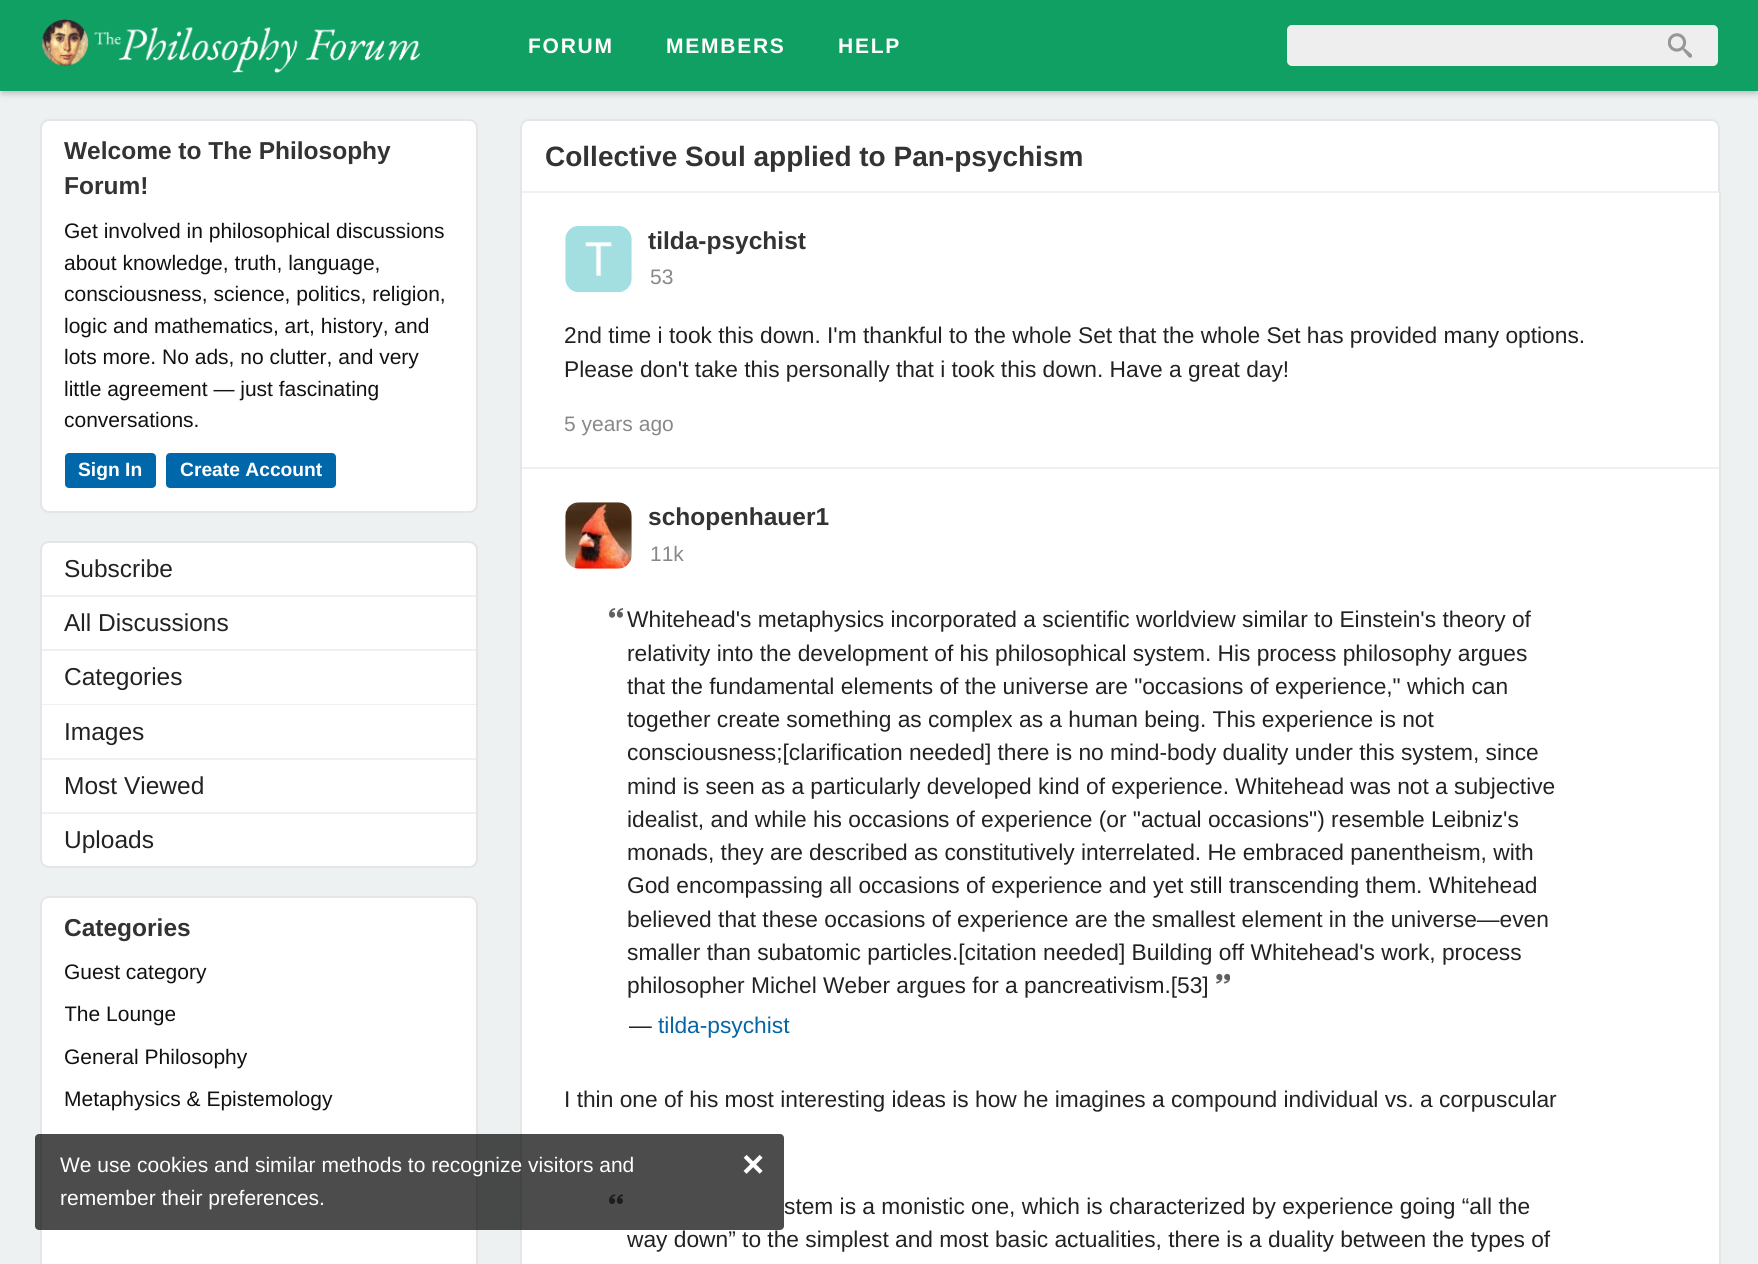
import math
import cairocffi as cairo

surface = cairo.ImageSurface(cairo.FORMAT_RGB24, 1758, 1264)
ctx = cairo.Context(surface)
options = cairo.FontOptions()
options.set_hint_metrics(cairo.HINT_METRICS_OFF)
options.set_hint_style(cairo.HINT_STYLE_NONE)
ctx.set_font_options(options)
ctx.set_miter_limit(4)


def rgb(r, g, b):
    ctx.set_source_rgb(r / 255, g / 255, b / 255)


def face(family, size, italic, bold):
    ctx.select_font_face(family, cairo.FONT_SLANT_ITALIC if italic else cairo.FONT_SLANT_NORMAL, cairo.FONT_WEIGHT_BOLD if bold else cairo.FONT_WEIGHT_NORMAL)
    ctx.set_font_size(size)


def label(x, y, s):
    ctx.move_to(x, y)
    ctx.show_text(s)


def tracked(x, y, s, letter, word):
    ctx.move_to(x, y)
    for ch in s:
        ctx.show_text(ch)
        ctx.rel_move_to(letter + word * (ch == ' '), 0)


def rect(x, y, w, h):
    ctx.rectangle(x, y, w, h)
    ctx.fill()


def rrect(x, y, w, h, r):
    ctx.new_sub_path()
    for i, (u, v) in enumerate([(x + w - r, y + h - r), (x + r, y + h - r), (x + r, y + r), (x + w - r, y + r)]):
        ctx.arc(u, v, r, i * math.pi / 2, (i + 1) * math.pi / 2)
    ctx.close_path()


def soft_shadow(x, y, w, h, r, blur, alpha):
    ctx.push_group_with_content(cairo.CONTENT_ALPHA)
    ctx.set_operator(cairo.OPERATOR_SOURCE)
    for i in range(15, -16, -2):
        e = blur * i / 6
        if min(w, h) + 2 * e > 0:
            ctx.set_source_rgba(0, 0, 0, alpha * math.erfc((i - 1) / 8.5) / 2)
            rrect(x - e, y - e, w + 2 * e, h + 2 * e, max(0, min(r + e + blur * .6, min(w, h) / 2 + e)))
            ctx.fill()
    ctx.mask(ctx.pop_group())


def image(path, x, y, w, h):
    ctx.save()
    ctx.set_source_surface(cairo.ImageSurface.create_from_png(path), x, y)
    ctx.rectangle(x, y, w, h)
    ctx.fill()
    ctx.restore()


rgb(238, 241, 242)
ctx.paint()
rgb(0, 0, 0)
soft_shadow(2, 5, 1755, 88, 0, 3.5, 0.25)
rgb(16, 160, 100)
rect(0, 0, 1758, 91)
image('image0.png', 42, 19, 379, 54)
face('Liberation Sans', 21, 0, 1)
rgb(255, 255, 255)
tracked(528, 53, 'FORUM', 1.75, 0)
tracked(666, 53, 'MEMBERS', 1.75, 0)
tracked(838, 53, 'HELP', 1.75, 0)
rgb(238, 238, 238)
rrect(1285, 23, 435, 45, 7)
ctx.fill_preserve()
rgb(16, 160, 100)
ctx.set_line_width(4)
ctx.stroke()
image('image1.png', 1668, 33, 24, 25)
rgb(255, 255, 255)
rrect(41, 120, 436, 392, 8)
ctx.fill_preserve()
rgb(229, 229, 229)
ctx.set_line_width(2)
ctx.stroke()
face('Liberation Sans', 24.5, 0, 1)
rgb(51, 51, 51)
label(64, 159, 'Welcome to The Philosophy')
label(64, 194, 'Forum!')
face('Liberation Sans', 21, 0, 0)
rgb(17, 17, 17)
label(64, 238, 'Get involved in philosophical discussions')
label(64, 270, 'about knowledge, truth, language,')
label(64, 301, 'consciousness, science, politics, religion,')
label(64, 333, 'logic and mathematics, art, history, and')
label(64, 364, 'lots more. No ads, no clutter, and very')
label(64, 396, 'little agreement — just fascinating')
label(64, 427, 'conversations.')
rgb(0, 104, 170)
rrect(66, 454, 89, 33, 3)
ctx.fill_preserve()
ctx.stroke()
face('Liberation Sans', 19.25, 0, 1)
rgb(255, 255, 255)
label(78, 476, 'Sign In')
rgb(0, 104, 170)
rrect(167, 454, 168, 33, 3)
ctx.fill_preserve()
ctx.stroke()
rgb(255, 255, 255)
label(180, 476, 'Create Account')
rrect(41, 542, 436, 325, 8)
ctx.fill_preserve()
rgb(229, 229, 229)
ctx.stroke()
rgb(238, 241, 242)
rect(42, 595, 434, 2)
face('Liberation Sans', 24.5, 0, 0)
rgb(34, 34, 34)
label(64, 577, 'Subscribe')
rgb(238, 241, 242)
rect(42, 649, 434, 2)
rgb(34, 34, 34)
label(64, 631, 'All Discussions')
rgb(238, 241, 242)
rect(42, 704, 434, 1)
rgb(34, 34, 34)
label(64, 685, 'Categories')
rgb(238, 241, 242)
rect(42, 758, 434, 2)
rgb(34, 34, 34)
label(64, 740, 'Images')
rgb(238, 241, 242)
rect(42, 812, 434, 2)
rgb(34, 34, 34)
label(64, 794, 'Most Viewed')
label(64, 848, 'Uploads')
rgb(255, 255, 255)
rrect(41, 897, 436, 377, 8)
ctx.fill_preserve()
rgb(229, 229, 229)
ctx.stroke()
face('Liberation Sans', 24.5, 0, 1)
rgb(51, 51, 51)
label(64, 936, 'Categories')
face('Liberation Sans', 21, 0, 0)
rgb(17, 17, 17)
label(64, 979, 'Guest category')
ctx.save()
ctx.rectangle(65, 996, 112, 38)
ctx.clip()
label(64, 1021, 'The Lounge')
ctx.restore()
label(64, 1064, 'General Philosophy')
label(64, 1106, 'Metaphysics & Epistemology')
rgb(255, 255, 255)
ctx.new_path()
ctx.move_to(529, 119)
ctx.line_to(1711, 119)
ctx.curve_to(1716, 119, 1720, 123, 1720, 128)
ctx.line_to(1720, 191)
ctx.line_to(520, 191)
ctx.line_to(520, 128)
ctx.curve_to(520, 123, 524, 119, 529, 119)
ctx.close_path()
ctx.fill()
rgb(229, 229, 229)
ctx.set_fill_rule(cairo.FILL_RULE_EVEN_ODD)
ctx.new_path()
ctx.move_to(528, 119)
ctx.line_to(1712, 119)
ctx.curve_to(1716, 119, 1720, 123, 1720, 128)
ctx.line_to(1720, 191)
ctx.line_to(520, 191)
ctx.line_to(520, 128)
ctx.curve_to(520, 123, 524, 119, 528, 119)
ctx.close_path()
ctx.move_to(528, 121)
ctx.line_to(1712, 121)
ctx.curve_to(1715, 121, 1718, 124, 1718, 128)
ctx.line_to(1718, 191)
ctx.line_to(522, 191)
ctx.line_to(522, 128)
ctx.curve_to(522, 124, 525, 121, 528, 121)
ctx.close_path()
ctx.fill()
face('Liberation Sans', 28, 0, 1)
rgb(51, 51, 51)
label(545, 166, 'Collective Soul applied to Pan-psychism')
rgb(255, 255, 255)
rect(522, 193, 1197, 1071)
rgb(229, 229, 229)
rect(1719, 191, 2, 1073)
rect(520, 191, 2, 1073)
rgb(238, 241, 242)
rect(522, 467, 1197, 2)
image('image2.png', 565, 225, 67, 68)
face('Liberation Sans', 24.5, 0, 1)
rgb(51, 51, 51)
label(648, 249, 'tilda-psychist')
face('Liberation Sans', 21, 0, 0)
rgb(136, 136, 136)
label(650, 284, '53')
face('Liberation Sans', 22.75, 0, 0)
rgb(34, 34, 34)
label(564, 343, '2nd time i took this down. I\'m thankful to the whole Set that the whole Set has provided many options.')
label(564, 377, 'Please don\'t take this personally that i took this down. Have a great day!')
face('Liberation Sans', 21, 0, 0)
rgb(136, 136, 136)
label(564, 431, '5 years ago')
image('image3.png', 565, 502, 67, 67)
face('Liberation Sans', 24.5, 0, 1)
rgb(51, 51, 51)
label(648, 525, 'schopenhauer1')
face('Liberation Sans', 21, 0, 0)
rgb(136, 136, 136)
label(650, 561, '11k')
image('image4.png', 609, 608, 14, 10)
face('Liberation Sans', 22.75, 0, 0)
rgb(34, 34, 34)
label(627, 627, 'Whitehead\'s metaphysics incorporated a scientific worldview similar to Einstein\'s theory of')
label(627, 661, 'relativity into the development of his philosophical system. His process philosophy argues')
label(627, 694, 'that the fundamental elements of the universe are "occasions of experience," which can')
label(627, 727, 'together create something as complex as a human being. This experience is not')
label(627, 760, 'consciousness;[clarification needed] there is no mind-body duality under this system, since')
label(627, 794, 'mind is seen as a particularly developed kind of experience. Whitehead was not a subjective')
label(627, 827, 'idealist, and while his occasions of experience (or "actual occasions") resemble Leibniz\'s')
label(627, 860, 'monads, they are described as constitutively interrelated. He embraced panentheism, with')
label(627, 893, 'God encompassing all occasions of experience and yet still transcending them. Whitehead')
label(627, 927, 'believed that these occasions of experience are the smallest element in the universe—even')
label(627, 960, 'smaller than subatomic particles.[citation needed] Building off Whitehead\'s work, process')
label(627, 993, 'philosopher Michel Weber argues for a pancreativism.[53]')
image('image5.png', 1216, 973, 14, 11)
label(629, 1033, '—')
rgb(4, 102, 165)
label(658, 1033, 'tilda-psychist')
rgb(34, 34, 34)
label(564, 1107, 'I thin one of his most interesting ideas is how he imagines a compound individual vs. a corpuscular')
image('image6.png', 609, 1194, 14, 10)
label(784, 1214, 'stem is a monistic one, which is characterized by experience going “all the')
label(627, 1247, 'way down” to the simplest and most basic actualities, there is a duality between the types of')
ctx.set_source_rgba(0, 0, 0, 0.7)
rrect(35, 1134, 749, 96, 4)
ctx.fill()
face('Liberation Sans', 21, 0, 0)
rgb(255, 255, 255)
label(60, 1172, 'We use cookies and similar methods to recognize visitors and')
face('Liberation Sans', 38, 0, 1)
label(742, 1177, '×')
face('Liberation Sans', 21, 0, 0)
label(60, 1205, 'remember their preferences.')
surface.write_to_png('render.png')
